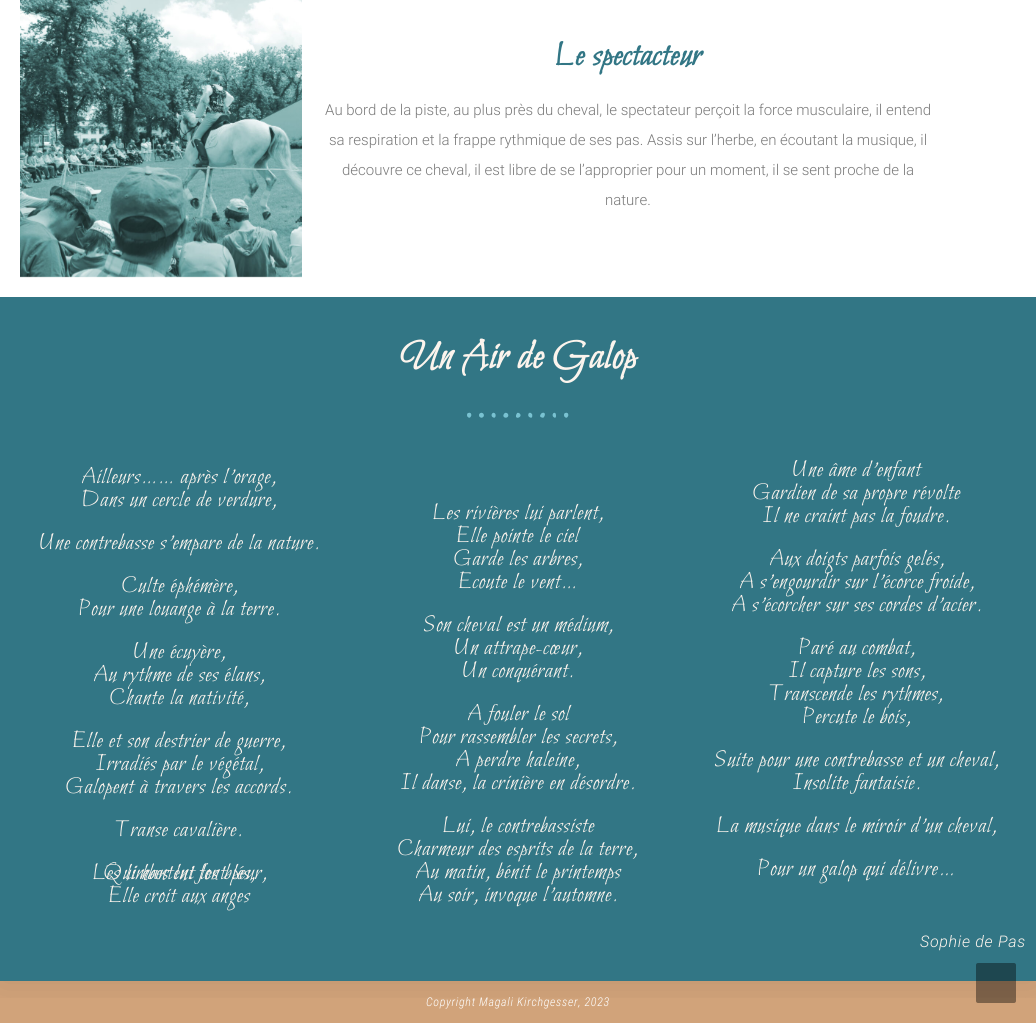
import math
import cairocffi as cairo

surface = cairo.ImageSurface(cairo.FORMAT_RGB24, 1036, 1023)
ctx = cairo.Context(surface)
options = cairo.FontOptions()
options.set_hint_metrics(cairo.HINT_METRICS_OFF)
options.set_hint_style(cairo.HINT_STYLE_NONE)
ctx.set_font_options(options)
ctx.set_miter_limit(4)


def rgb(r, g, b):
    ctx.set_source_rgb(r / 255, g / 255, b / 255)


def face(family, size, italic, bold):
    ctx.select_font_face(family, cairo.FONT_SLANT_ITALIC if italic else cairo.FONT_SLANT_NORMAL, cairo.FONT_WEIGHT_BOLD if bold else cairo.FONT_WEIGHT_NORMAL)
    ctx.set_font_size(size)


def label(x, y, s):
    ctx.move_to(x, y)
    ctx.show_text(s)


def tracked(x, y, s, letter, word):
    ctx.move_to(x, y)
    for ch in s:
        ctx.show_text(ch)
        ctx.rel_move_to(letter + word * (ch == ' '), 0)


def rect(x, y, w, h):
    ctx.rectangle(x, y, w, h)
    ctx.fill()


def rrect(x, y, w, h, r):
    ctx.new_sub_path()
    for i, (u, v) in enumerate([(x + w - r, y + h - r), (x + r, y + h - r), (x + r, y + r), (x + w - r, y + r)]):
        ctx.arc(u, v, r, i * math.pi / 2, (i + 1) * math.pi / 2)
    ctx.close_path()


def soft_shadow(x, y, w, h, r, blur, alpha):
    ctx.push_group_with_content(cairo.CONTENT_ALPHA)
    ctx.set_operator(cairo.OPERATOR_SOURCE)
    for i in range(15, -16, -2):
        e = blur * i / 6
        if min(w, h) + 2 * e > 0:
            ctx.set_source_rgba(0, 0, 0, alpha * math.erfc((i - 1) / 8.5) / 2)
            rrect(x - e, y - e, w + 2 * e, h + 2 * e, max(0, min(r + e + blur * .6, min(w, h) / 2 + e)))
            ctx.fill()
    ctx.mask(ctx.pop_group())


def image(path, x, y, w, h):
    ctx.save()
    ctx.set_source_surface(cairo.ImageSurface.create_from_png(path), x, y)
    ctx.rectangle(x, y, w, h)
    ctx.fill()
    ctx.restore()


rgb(255, 255, 255)
ctx.paint()
rgb(209, 163, 122)
rect(0, 981, 1036, 42)
ctx.save()
ctx.rectangle(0, 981, 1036, 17)
ctx.clip()
rgb(0, 0, 0)
soft_shadow(0, -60, 1036, 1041, 0, 20, 0.1)
ctx.restore()
image('image0.png', 20, 0, 282, 278)
face('Bilbo', 35, 0, 1)
rgb(50, 118, 133)
tracked(554, 65, 'Le spectacteur', 0.7, 0)
face('Roboto Light', 15, 0, 0)
rgb(122, 122, 122)
label(325, 115, 'Au bord de la piste, au plus près du cheval, le spectateur perçoit la force musculaire, il entend')
label(329, 145, 'sa respiration et la frappe rythmique de ses pas. Assis sur l’herbe, en écoutant la musique, il')
label(342, 175, 'découvre ce cheval, il est libre de se l’approprier pour un moment, il se sent proche de la')
label(605, 205, 'nature.')
rgb(50, 118, 133)
rect(0, 297, 1036, 684)
face('Bilbo Swash Caps', 42, 0, 1)
rgb(252, 244, 237)
tracked(400, 368, 'Un Air de Galop', 0.7, 0)
image('image1.png', 467, 412, 102, 6)
face('Bilbo', 24, 0, 0)
tracked(81, 483, 'Ailleurs…… après l’orage,', 0.7, 0)
tracked(81, 506, 'Dans un cercle de verdure,', 0.7, 0)
tracked(792, 476, 'Une âme d’enfant', 0.7, 0)
tracked(752, 499, 'Gardien de sa propre révolte', 0.7, 0)
tracked(762, 522, 'Il ne craint pas la foudre.', 0.7, 0)
tracked(39, 549, 'Une contrebasse s’empare de la nature.', 0.7, 0)
tracked(432, 519, 'Les rivières lui parlent,', 0.7, 0)
tracked(456, 542, 'Elle pointe le ciel', 0.7, 0)
tracked(453, 565, 'Garde les arbres,', 0.7, 0)
tracked(458, 588, 'Ecoute le vent…', 0.7, 0)
tracked(121, 592, 'Culte éphémère,', 0.7, 0)
tracked(78, 615, 'Pour une louange à la terre.', 0.7, 0)
tracked(769, 565, 'Aux doigts parfois gelés,', 0.7, 0)
tracked(739, 588, 'A s’engourdir sur l’écorce froide,', 0.7, 0)
tracked(731, 611, 'A s’écorcher sur ses cordes d’acier.', 0.7, 0)
tracked(133, 658, 'Une écuyère,', 0.7, 0)
tracked(93, 681, 'Au rythme de ses élans,', 0.7, 0)
tracked(109, 704, 'Chante la nativité,', 0.7, 0)
tracked(423, 631, 'Son cheval est un médium,', 0.7, 0)
tracked(454, 654, 'Un attrape-cœur,', 0.7, 0)
tracked(462, 677, 'Un conquérant.', 0.7, 0)
tracked(798, 654, 'Paré au combat,', 0.7, 0)
tracked(788, 677, 'Il capture les sons,', 0.7, 0)
tracked(769, 700, 'Transcende les rythmes,', 0.7, 0)
tracked(802, 723, 'Percute le bois,', 0.7, 0)
tracked(72, 747, 'Elle et son destrier de guerre,', 0.7, 0)
tracked(95, 770, 'Irradiés par le végétal,', 0.7, 0)
tracked(65, 793, 'Galopent à travers les accords.', 0.7, 0)
tracked(467, 720, 'A fouler le sol', 0.7, 0)
tracked(419, 743, 'Pour rassembler les secrets,', 0.7, 0)
tracked(455, 766, 'A perdre haleine,', 0.7, 0)
tracked(400, 789, 'Il danse, la crinière en désordre.', 0.7, 0)
tracked(714, 766, 'Suite pour une contrebasse et un cheval,', 0.7, 0)
tracked(792, 789, 'Insolite fantaisie.', 0.7, 0)
tracked(115, 836, 'Transe cavalière.', 0.7, 0)
tracked(442, 832, 'Lui, le contrebassiste', 0.7, 0)
tracked(397, 855, 'Charmeur des esprits de la terre,', 0.7, 0)
tracked(415, 878, 'Au matin, bénit le printemps', 0.7, 0)
tracked(418, 901, 'Au soir, invoque l’automne.', 0.7, 0)
tracked(716, 832, 'La musique dans le miroir d’un cheval,', 0.7, 0)
tracked(92, 879, 'Les limbes lui font peur,', 0.7, 0)
tracked(103, 879, 'Qui hantent les blés,', 0.7, 0)
tracked(108, 902, 'Elle croit aux anges', 0.7, 0)
tracked(757, 875, 'Pour un galop qui délivre…', 0.7, 0)
face('Roboto Light', 16, 1, 0)
tracked(920, 947, 'Sophie de Pas', 0.7, 0)
face('Roboto Condensed Light', 12, 1, 0)
rgb(255, 255, 255)
tracked(426, 1006, 'Copyright Magali Kirchgesser, 2023', 0.7, 0)
ctx.set_source_rgba(0, 0, 0, 0.4)
rrect(976, 963, 40, 40, 2)
ctx.fill()
surface.write_to_png('render.png')
